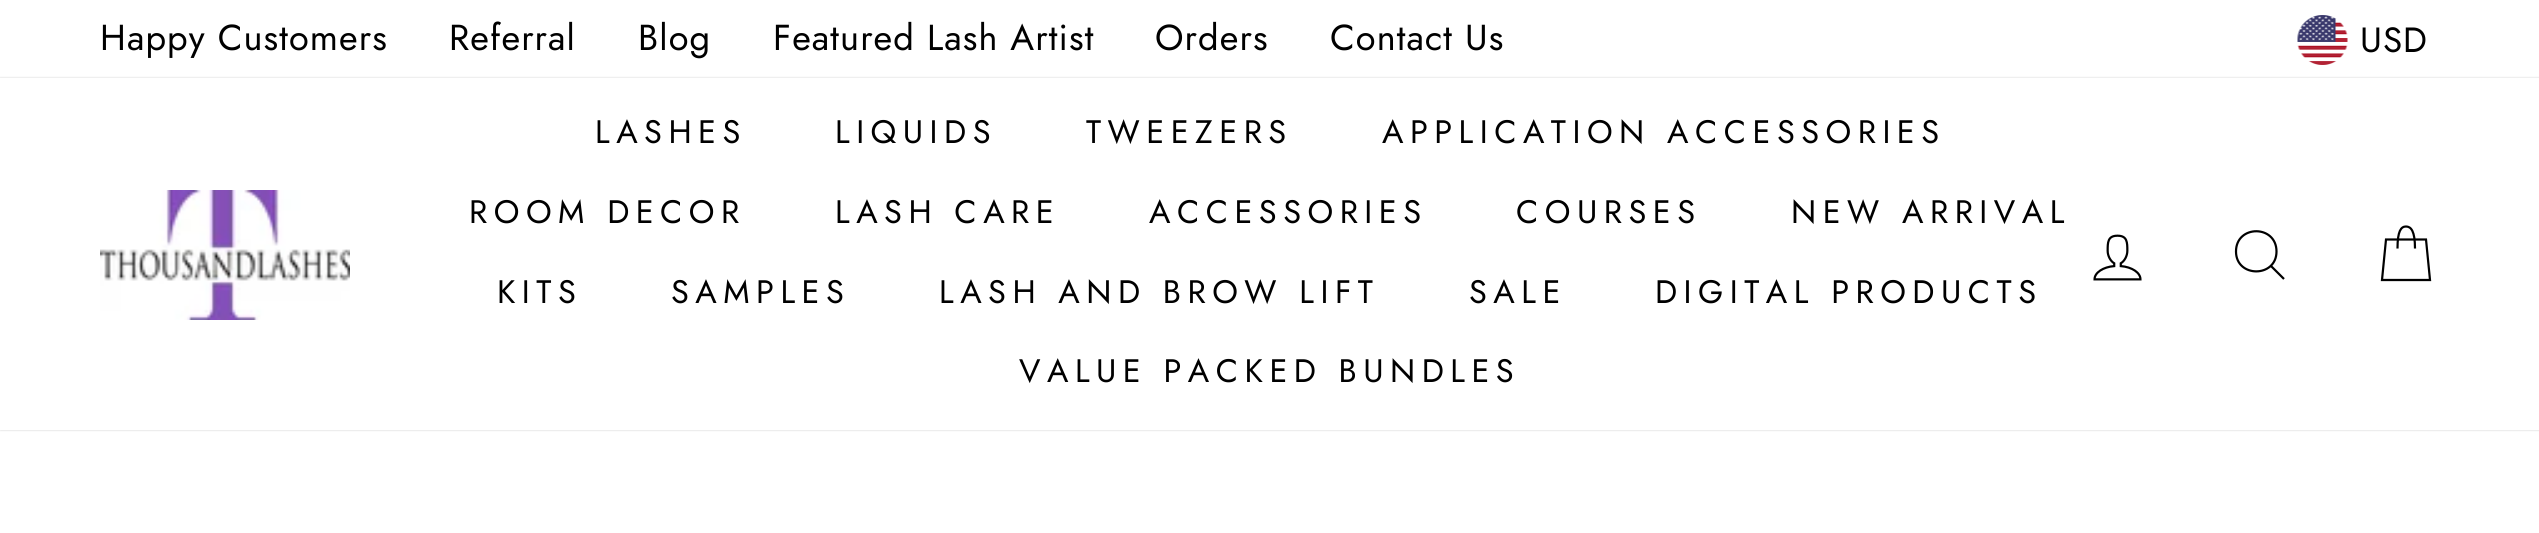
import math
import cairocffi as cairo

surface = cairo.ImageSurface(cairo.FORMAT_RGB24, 2539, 533)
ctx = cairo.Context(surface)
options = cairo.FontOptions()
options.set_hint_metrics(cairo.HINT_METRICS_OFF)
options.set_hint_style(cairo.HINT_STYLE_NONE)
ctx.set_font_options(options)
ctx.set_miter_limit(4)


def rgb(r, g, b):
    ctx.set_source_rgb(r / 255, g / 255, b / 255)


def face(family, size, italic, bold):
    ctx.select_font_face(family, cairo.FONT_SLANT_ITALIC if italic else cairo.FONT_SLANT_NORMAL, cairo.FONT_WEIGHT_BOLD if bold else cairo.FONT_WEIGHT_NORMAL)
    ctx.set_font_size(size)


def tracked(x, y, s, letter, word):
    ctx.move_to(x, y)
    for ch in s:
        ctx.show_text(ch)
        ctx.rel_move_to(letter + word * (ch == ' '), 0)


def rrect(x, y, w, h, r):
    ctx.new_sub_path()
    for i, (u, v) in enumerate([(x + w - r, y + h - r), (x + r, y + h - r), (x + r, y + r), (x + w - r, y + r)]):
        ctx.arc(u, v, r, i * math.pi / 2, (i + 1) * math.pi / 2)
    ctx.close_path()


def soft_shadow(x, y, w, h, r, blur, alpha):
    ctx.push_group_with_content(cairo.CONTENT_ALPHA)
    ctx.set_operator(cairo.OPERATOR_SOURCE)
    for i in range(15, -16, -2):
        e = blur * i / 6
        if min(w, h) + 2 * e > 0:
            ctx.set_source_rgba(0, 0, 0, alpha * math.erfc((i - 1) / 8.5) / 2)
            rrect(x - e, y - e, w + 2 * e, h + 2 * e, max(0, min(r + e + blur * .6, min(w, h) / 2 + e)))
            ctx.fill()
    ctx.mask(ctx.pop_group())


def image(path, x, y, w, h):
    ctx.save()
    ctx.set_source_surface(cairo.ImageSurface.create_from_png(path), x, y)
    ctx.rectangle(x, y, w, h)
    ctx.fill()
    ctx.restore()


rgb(255, 255, 255)
ctx.paint()
face('Jost', 36.1, 0, 0)
rgb(0, 0, 0)
tracked(100, 50, 'Happy Customers', 1.1, 0)
tracked(449, 50, 'Referral', 1.1, 0)
tracked(638, 50, 'Blog', 1.1, 0)
tracked(773, 50, 'Featured Lash Artist', 1.1, 0)
tracked(1155, 50, 'Orders', 1.1, 0)
tracked(1330, 50, 'Contact Us', 1.1, 0)
image('image0.png', 2297, 15, 51, 50)
face('Jost', 35, 0, 0)
tracked(2360, 52, 'USD', 1, 0)
ctx.save()
ctx.set_fill_rule(cairo.FILL_RULE_EVEN_ODD)
ctx.new_path()
ctx.move_to(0, 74)
ctx.line_to(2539, 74)
ctx.line_to(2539, 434)
ctx.line_to(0, 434)
ctx.close_path()
ctx.move_to(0, 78)
ctx.line_to(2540, 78)
ctx.line_to(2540, 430)
ctx.line_to(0, 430)
ctx.close_path()
ctx.clip()
rgb(0, 0, 0)
soft_shadow(0, 78, 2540, 352, 0, 1, 0.2)
ctx.restore()
image('image1.png', 100, 190, 250, 130)
face('Jost', 32.5, 0, 0)
tracked(595, 143, 'LASHES', 6.5, 0)
tracked(835, 143, 'LIQUIDS', 6.5, 0)
tracked(1086, 143, 'TWEEZERS', 6.5, 0)
tracked(1382, 143, 'APPLICATION ACCESSORIES', 6.5, 0)
tracked(469, 223, 'ROOM DECOR', 6.5, 0)
tracked(835, 223, 'LASH CARE', 6.5, 0)
tracked(1149, 223, 'ACCESSORIES', 6.5, 0)
tracked(1516, 223, 'COURSES', 6.5, 0)
tracked(1791, 223, 'NEW ARRIVAL', 6.5, 0)
tracked(497, 303, 'KITS', 6.5, 0)
tracked(671, 303, 'SAMPLES', 6.5, 0)
tracked(939, 303, 'LASH AND BROW LIFT', 6.5, 0)
tracked(1469, 303, 'SALE', 6.5, 0)
tracked(1655, 303, 'DIGITAL PRODUCTS', 6.5, 0)
tracked(1019, 382, 'VALUE PACKED BUNDLES', 6.5, 0)
image('image2.png', 2093, 234, 49, 47)
ctx.new_path()
ctx.move_to(2276.5, 251.5)
ctx.curve_to(2276.5, 278, 2236, 278, 2236, 251.5)
ctx.curve_to(2236, 224.5, 2276.5, 224.5, 2276.5, 251.5)
ctx.close_path()
ctx.move_to(2284, 279)
ctx.line_to(2271, 266)
ctx.set_line_width(2.2)
ctx.stroke()
ctx.new_path()
ctx.move_to(2397.5, 248.5)
ctx.curve_to(2397.5, 231, 2401, 226.5, 2406, 226.5)
ctx.curve_to(2411, 226.5, 2415, 231, 2415, 248.5)
ctx.move_to(2386, 239.5)
ctx.line_to(2426, 239.5)
ctx.line_to(2430, 280)
ctx.line_to(2382, 280)
ctx.close_path()
ctx.stroke()
surface.write_to_png('render.png')
